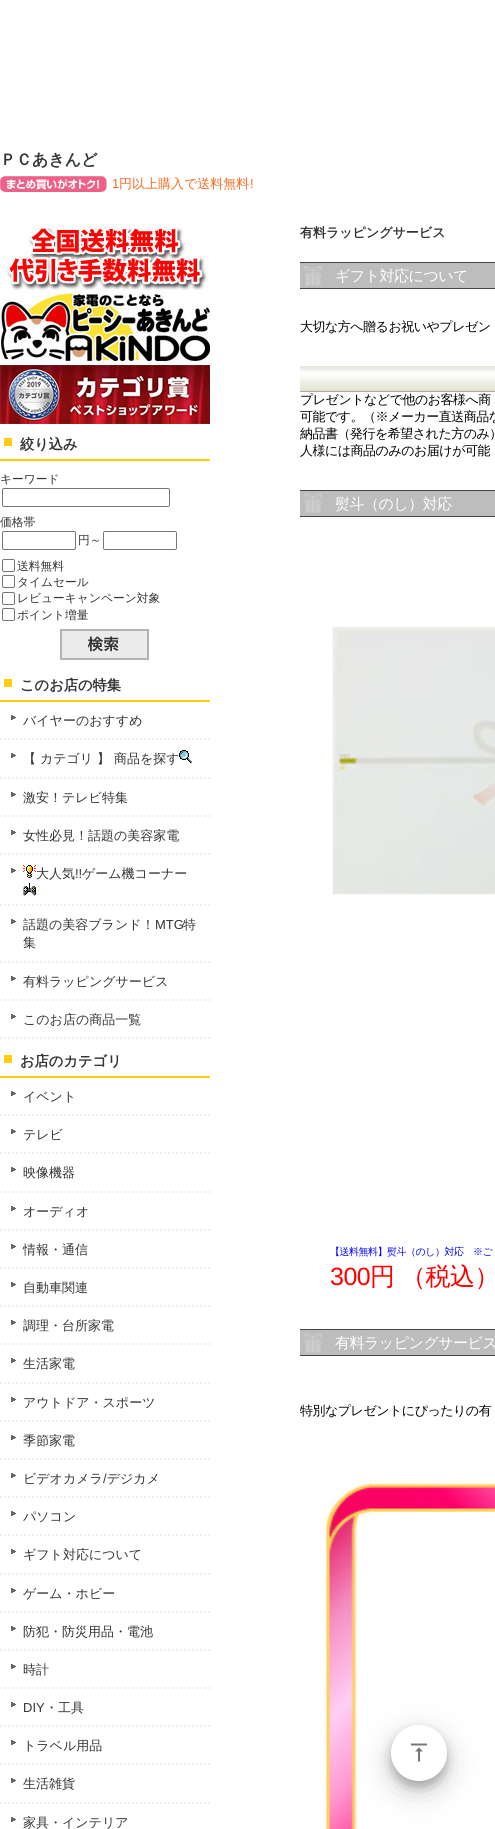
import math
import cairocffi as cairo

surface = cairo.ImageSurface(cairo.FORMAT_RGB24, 495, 1829)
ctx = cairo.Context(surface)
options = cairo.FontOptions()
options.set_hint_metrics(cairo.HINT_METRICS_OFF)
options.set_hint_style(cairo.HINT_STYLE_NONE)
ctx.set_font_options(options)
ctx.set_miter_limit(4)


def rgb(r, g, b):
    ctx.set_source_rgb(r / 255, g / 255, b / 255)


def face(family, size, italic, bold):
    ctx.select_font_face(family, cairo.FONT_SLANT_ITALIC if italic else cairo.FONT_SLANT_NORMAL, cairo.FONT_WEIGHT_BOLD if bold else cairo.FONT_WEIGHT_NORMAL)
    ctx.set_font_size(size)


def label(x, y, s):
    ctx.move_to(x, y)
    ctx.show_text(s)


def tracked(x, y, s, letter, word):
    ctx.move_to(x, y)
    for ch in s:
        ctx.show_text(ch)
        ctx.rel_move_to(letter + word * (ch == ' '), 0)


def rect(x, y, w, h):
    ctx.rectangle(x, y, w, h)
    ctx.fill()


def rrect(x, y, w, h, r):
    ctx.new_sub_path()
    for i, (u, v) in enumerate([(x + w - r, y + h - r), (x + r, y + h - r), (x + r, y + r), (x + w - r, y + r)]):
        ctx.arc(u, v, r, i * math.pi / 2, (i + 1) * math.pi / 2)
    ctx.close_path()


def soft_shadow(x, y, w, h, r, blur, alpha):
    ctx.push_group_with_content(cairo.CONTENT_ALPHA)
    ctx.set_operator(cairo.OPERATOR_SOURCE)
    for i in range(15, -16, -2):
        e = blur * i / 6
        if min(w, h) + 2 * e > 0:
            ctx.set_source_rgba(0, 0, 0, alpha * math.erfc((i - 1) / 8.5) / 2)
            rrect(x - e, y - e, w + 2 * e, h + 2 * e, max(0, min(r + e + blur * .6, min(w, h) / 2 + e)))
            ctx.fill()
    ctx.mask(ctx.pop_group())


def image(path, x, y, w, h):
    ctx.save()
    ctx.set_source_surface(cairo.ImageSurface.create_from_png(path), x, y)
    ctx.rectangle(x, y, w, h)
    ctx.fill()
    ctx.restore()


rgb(255, 255, 255)
ctx.paint()
face('WenQuanYi Zen Hei', 16, 0, 1)
rgb(51, 51, 51)
label(0, 165, 'ＰＣあきんど')
image('image0.png', 0, 176, 107, 16)
face('Liberation Sans', 13, 0, 0)
rgb(247, 107, 31)
label(112, 188, '1')
face('WenQuanYi Zen Hei Medium', 13, 0, 0)
label(119, 188, '円以上購入で送料無料')
face('Liberation Sans', 13, 0, 0)
label(250, 188, '!')
image('image1.png', 0, 224, 210, 200)
rgb(255, 204, 13)
rect(4, 438, 8, 8)
rect(0, 459, 210, 2)
face('WenQuanYi Zen Hei', 14.25, 0, 1)
rgb(51, 51, 51)
label(20, 449, '絞り込み')
face('WenQuanYi Zen Hei Medium', 11.75, 0, 0)
label(0, 483, 'キーワード')
rrect(2.5, 488.5, 167, 18, 1.5)
rgb(118, 118, 118)
ctx.set_line_width(1)
ctx.stroke()
rgb(51, 51, 51)
label(0, 526, '価格帯')
rrect(2.5, 531.5, 73, 18, 1.5)
rgb(118, 118, 118)
ctx.stroke()
rgb(51, 51, 51)
label(78, 544, '円～')
rrect(103.5, 531.5, 73, 18, 1.5)
rgb(118, 118, 118)
ctx.stroke()
rrect(2.5, 559.5, 12, 12, 1.5)
ctx.stroke()
rgb(51, 51, 51)
label(17, 570, '送料無料')
rrect(2.5, 575.5, 12, 12, 1.5)
rgb(118, 118, 118)
ctx.stroke()
rgb(51, 51, 51)
label(17, 586, 'タイムセール')
rrect(2.5, 592.5, 12, 12, 1.5)
rgb(118, 118, 118)
ctx.stroke()
rgb(51, 51, 51)
label(17, 602, 'レビューキャンペーン対象')
rrect(2.5, 608.5, 12, 12, 1.5)
rgb(118, 118, 118)
ctx.stroke()
rgb(51, 51, 51)
label(17, 619, 'ポイント増量')
image('image2.png', 60, 629, 89, 31)
rgb(255, 204, 13)
rect(4, 679, 8, 8)
rect(0, 700, 210, 2)
face('WenQuanYi Zen Hei', 14.25, 0, 1)
rgb(51, 51, 51)
label(20, 690, 'このお店の特集')
image('image3.png', 0, 738, 210, 2)
image('image4.png', 11, 715, 5, 5)
face('WenQuanYi Zen Hei Medium', 13, 0, 0)
label(23, 725, 'バイヤーのおすすめ')
image('image3.png', 0, 777, 210, 2)
image('image4.png', 11, 753, 5, 5)
label(23, 763, '【 カテゴリ 】 商品を探す')
image('image5.png', 179, 750, 13, 13)
image('image3.png', 0, 815, 210, 2)
image('image4.png', 11, 792, 5, 5)
label(23, 802, '激安！テレビ特集')
image('image3.png', 0, 853, 210, 2)
image('image4.png', 11, 830, 5, 5)
label(23, 840, '女性必見！話題の美容家電')
image('image3.png', 0, 904, 210, 2)
image('image4.png', 11, 868, 5, 5)
image('image6.png', 23, 865, 13, 13)
label(36, 878, '大人気')
face('Liberation Sans', 13, 0, 0)
label(75, 878, '!!')
face('WenQuanYi Zen Hei Medium', 13, 0, 0)
label(82, 878, 'ゲーム機コーナー')
image('image7.png', 23, 883, 13, 13)
image('image3.png', 0, 961, 210, 2)
image('image4.png', 11, 919, 5, 5)
label(23, 929, '話題の美容ブランド！')
face('Liberation Sans', 13, 0, 0)
label(155, 929, 'MTG')
face('WenQuanYi Zen Hei Medium', 13, 0, 0)
label(183, 929, '特')
label(23, 947, '集')
image('image3.png', 0, 999, 210, 2)
image('image4.png', 11, 976, 5, 5)
label(23, 986, '有料ラッピングサービス')
image('image3.png', 0, 1037, 210, 2)
image('image4.png', 11, 1014, 5, 5)
label(23, 1024, 'このお店の商品一覧')
rgb(255, 204, 13)
rect(4, 1055, 8, 8)
rect(0, 1076, 210, 2)
face('WenQuanYi Zen Hei', 14.25, 0, 1)
rgb(51, 51, 51)
label(20, 1066, 'お店のカテゴリ')
image('image3.png', 0, 1114, 210, 2)
image('image4.png', 11, 1091, 5, 5)
face('WenQuanYi Zen Hei Medium', 13, 0, 0)
label(23, 1101, 'イベント')
image('image3.png', 0, 1152, 210, 2)
image('image4.png', 11, 1129, 5, 5)
label(23, 1139, 'テレビ')
image('image3.png', 0, 1191, 210, 2)
image('image4.png', 11, 1167, 5, 5)
label(23, 1177, '映像機器')
image('image3.png', 0, 1229, 210, 2)
image('image4.png', 11, 1206, 5, 5)
label(23, 1216, 'オーディオ')
image('image3.png', 0, 1267, 210, 2)
image('image4.png', 11, 1244, 5, 5)
label(23, 1254, '情報・通信')
image('image3.png', 0, 1305, 210, 2)
image('image4.png', 11, 1282, 5, 5)
label(23, 1292, '自動車関連')
image('image3.png', 0, 1343, 210, 2)
image('image4.png', 11, 1320, 5, 5)
label(23, 1330, '調理・台所家電')
image('image3.png', 0, 1382, 210, 2)
image('image4.png', 11, 1358, 5, 5)
label(23, 1368, '生活家電')
image('image3.png', 0, 1420, 210, 2)
image('image4.png', 11, 1397, 5, 5)
label(23, 1407, 'アウトドア・スポーツ')
image('image3.png', 0, 1458, 210, 2)
image('image4.png', 11, 1435, 5, 5)
label(23, 1445, '季節家電')
image('image3.png', 0, 1496, 210, 2)
image('image4.png', 11, 1473, 5, 5)
label(23, 1483, 'ビデオカメラ デジカメ')
face('Liberation Sans', 13, 0, 0)
label(103, 1483, '/')
image('image3.png', 0, 1534, 210, 2)
image('image4.png', 11, 1511, 5, 5)
face('WenQuanYi Zen Hei Medium', 13, 0, 0)
label(23, 1521, 'パソコン')
image('image3.png', 0, 1573, 210, 2)
image('image4.png', 11, 1549, 5, 5)
label(23, 1559, 'ギフト対応について')
image('image3.png', 0, 1611, 210, 2)
image('image4.png', 11, 1588, 5, 5)
label(23, 1598, 'ゲーム・ホビー')
image('image3.png', 0, 1649, 210, 2)
image('image4.png', 11, 1626, 5, 5)
label(23, 1636, '防犯・防災用品・電池')
image('image3.png', 0, 1687, 210, 2)
image('image4.png', 11, 1664, 5, 5)
label(23, 1674, '時計')
image('image3.png', 0, 1725, 210, 2)
image('image4.png', 11, 1702, 5, 5)
face('Liberation Sans', 13, 0, 0)
label(23, 1712, 'DIY')
face('WenQuanYi Zen Hei Medium', 13, 0, 0)
label(45, 1712, '・工具')
image('image3.png', 0, 1763, 210, 2)
image('image4.png', 11, 1740, 5, 5)
label(23, 1750, 'トラベル用品')
image('image3.png', 0, 1802, 210, 2)
image('image4.png', 11, 1778, 5, 5)
label(23, 1788, '生活雑貨')
image('image4.png', 11, 1817, 5, 5)
label(23, 1827, '家具・インテリア')
face('WenQuanYi Zen Hei', 13, 0, 1)
label(300, 237, '有料ラッピングサービス')
rgb(189, 189, 189)
rect(300, 263, 195, 25)
rgb(68, 68, 68)
rect(300, 262, 195, 1)
rect(300, 288, 195, 1)
image('image8.png', 303, 266, 19, 20)
face('WenQuanYi Zen Hei Medium', 15, 0, 0)
rgb(255, 255, 255)
tracked(335, 281, 'ギフト対応について', -0.5, 0)
face('WenQuanYi Zen Hei Medium', 13, 0, 0)
rgb(0, 0, 0)
tracked(300, 331, '大切な方へ贈るお祝いやプレゼン', -0.5, 0)
rgb(223, 224, 211)
rect(300, 389, 195, 2)
image('image9.png', 300, 366, 195, 24)
rgb(182, 166, 158)
rect(300, 391, 195, 1)
rgb(0, 0, 0)
tracked(300, 404, 'プレゼントなどで他のお客様へ商', -0.5, 0)
tracked(300, 421, '可能です。（※メーカー直送商品な', -0.5, 0)
tracked(300, 438, '納品書（発行を希望された方のみ）', -0.5, 0)
tracked(300, 455, '人様には商品のみのお届けが可能', -0.5, 0)
rgb(189, 189, 189)
rect(300, 491, 195, 25)
rgb(68, 68, 68)
rect(300, 490, 195, 1)
rect(300, 516, 195, 1)
image('image8.png', 303, 493, 19, 20)
face('WenQuanYi Zen Hei Medium', 15, 0, 0)
rgb(255, 255, 255)
tracked(335, 509, '熨斗（のし）対応', -0.5, 0)
image('image10.png', 332, 626, 163, 269)
face('WenQuanYi Zen Hei Medium', 10, 0, 0)
rgb(0, 0, 255)
tracked(330, 1255, '【送料無料】熨斗（のし）対応　※ご', -0.5, 0)
face('Liberation Sans', 25, 0, 0)
rgb(255, 0, 0)
tracked(330, 1285, '300', -0.5, 0)
face('WenQuanYi Zen Hei Medium', 25, 0, 0)
tracked(370, 1285, '円', -0.5, 0)
tracked(401, 1285, '（税込）', -0.5, 0)
rgb(189, 189, 189)
rect(300, 1330, 195, 25)
rgb(68, 68, 68)
rect(300, 1329, 195, 1)
rect(300, 1355, 195, 1)
image('image8.png', 303, 1333, 19, 20)
face('WenQuanYi Zen Hei Medium', 15, 0, 0)
rgb(255, 255, 255)
tracked(335, 1348, '有料ラッピングサービス', -0.5, 0)
face('WenQuanYi Zen Hei Medium', 13, 0, 0)
rgb(0, 0, 0)
tracked(300, 1415, '特別なプレゼントにぴったりの有', -0.5, 0)
image('image11.png', 324, 1480, 171, 349)
rgb(0, 0, 0)
soft_shadow(391, 1735, 56, 56, 28, 15, 0.19)
soft_shadow(391, 1731, 56, 56, 28, 5, 0.23)
rgb(255, 255, 255)
ctx.arc(419, 1753, 28, 0, 2 * math.pi)
ctx.fill()
image('image12.png', 411, 1743, 16, 19)
surface.write_to_png('render.png')
